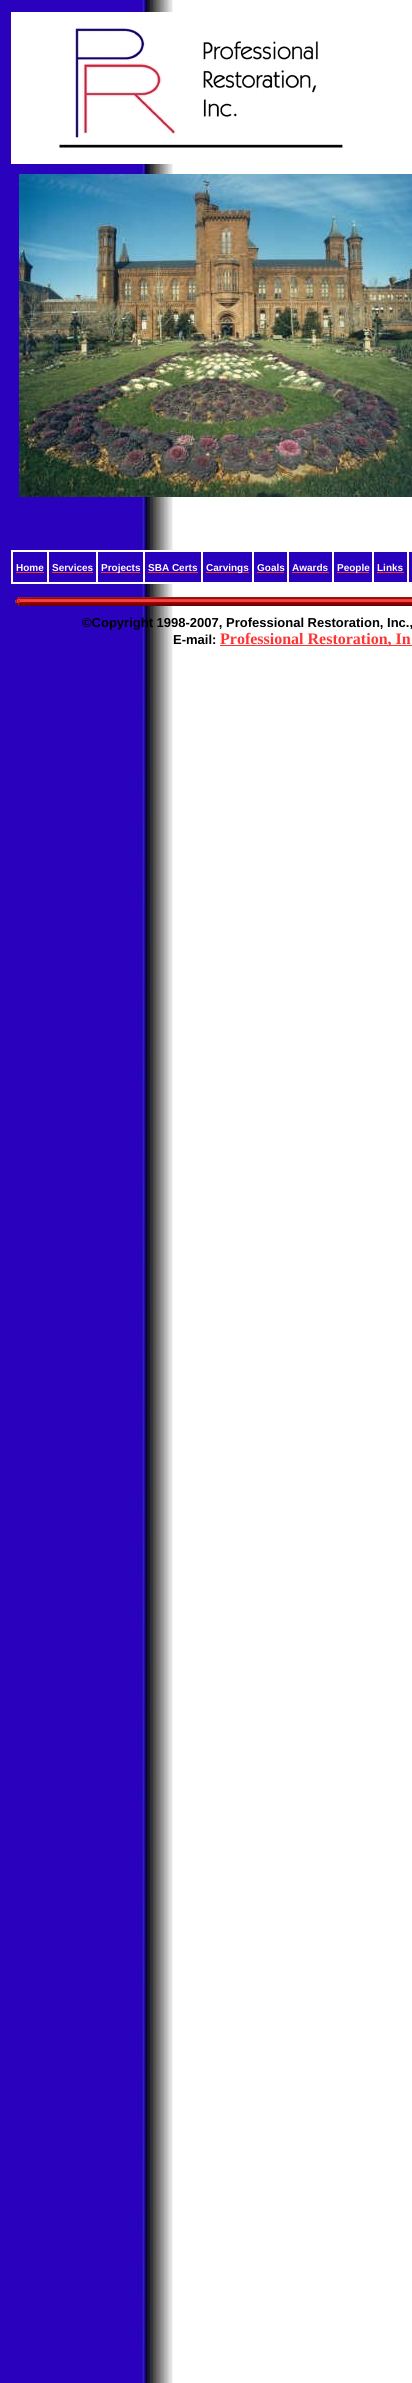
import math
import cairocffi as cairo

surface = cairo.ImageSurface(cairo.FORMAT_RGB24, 412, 2383)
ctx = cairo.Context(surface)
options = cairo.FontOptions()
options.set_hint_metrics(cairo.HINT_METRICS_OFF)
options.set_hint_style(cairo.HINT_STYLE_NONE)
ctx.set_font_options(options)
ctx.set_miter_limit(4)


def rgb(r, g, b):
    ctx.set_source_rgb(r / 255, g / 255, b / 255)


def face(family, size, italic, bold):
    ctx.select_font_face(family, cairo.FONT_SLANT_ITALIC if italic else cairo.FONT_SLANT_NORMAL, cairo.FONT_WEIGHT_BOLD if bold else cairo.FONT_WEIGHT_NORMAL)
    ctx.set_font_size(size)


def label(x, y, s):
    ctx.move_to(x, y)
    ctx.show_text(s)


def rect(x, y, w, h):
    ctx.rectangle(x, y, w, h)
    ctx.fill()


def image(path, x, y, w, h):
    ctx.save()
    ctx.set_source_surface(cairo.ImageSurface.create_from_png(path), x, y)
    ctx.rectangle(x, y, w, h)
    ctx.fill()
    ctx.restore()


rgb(255, 255, 255)
ctx.paint()
image('image0.png', 0, 0, 173, 2383)
image('image1.png', 11, 12, 334, 152)
image('image2.png', 19, 174, 393, 323)
rgb(255, 255, 255)
rect(11, 550, 162, 34)
rgb(41, 0, 189)
rect(13, 552, 34, 30)
face('Liberation Sans', 10, 0, 1)
rgb(255, 255, 255)
label(16, 571, 'Home')
rgb(255, 51, 51)
rect(16, 572, 28, 1)
rgb(41, 0, 189)
rect(49, 552, 47, 30)
rgb(255, 255, 255)
label(52, 571, 'Services')
rgb(255, 51, 51)
rect(52, 572, 41, 1)
rgb(41, 0, 189)
rect(98, 552, 45, 30)
rgb(255, 51, 51)
rect(101, 572, 39, 1)
rgb(255, 255, 255)
label(101, 571, 'Projects')
rgb(41, 0, 189)
rect(145, 552, 56, 30)
rgb(255, 255, 255)
label(148, 571, 'SBA Certs')
rgb(255, 51, 51)
rect(148, 572, 50, 1)
rgb(41, 0, 189)
rect(203, 552, 49, 30)
rgb(255, 51, 51)
rect(206, 572, 43, 1)
rgb(255, 255, 255)
label(206, 571, 'Carvings')
rgb(41, 0, 189)
rect(254, 552, 33, 30)
rgb(255, 255, 255)
label(257, 571, 'Goals')
rgb(255, 51, 51)
rect(257, 572, 27, 1)
rgb(41, 0, 189)
rect(289, 552, 43, 30)
rgb(255, 255, 255)
label(292, 571, 'Awards')
rgb(255, 51, 51)
rect(292, 572, 37, 1)
rgb(41, 0, 189)
rect(334, 552, 38, 30)
rgb(255, 51, 51)
rect(337, 572, 32, 1)
rgb(255, 255, 255)
label(337, 571, 'People')
rgb(41, 0, 189)
rect(374, 552, 33, 30)
rgb(255, 255, 255)
label(377, 571, 'Links')
rgb(255, 51, 51)
rect(377, 572, 27, 1)
rgb(41, 0, 189)
rect(409, 552, 3, 30)
image('image3.png', 15, 597, 397, 9)
face('Liberation Sans', 13, 0, 1)
rgb(0, 0, 0)
label(82, 627, '©Copyright 1998-2007, Professional Restoration, Inc.,')
label(173, 644, 'E-mail:')
rgb(255, 51, 51)
rect(220, 645, 192, 1)
face('Liberation Serif', 16, 0, 1)
label(220, 644, 'Professional Restoration, In')
surface.write_to_png('render.png')
